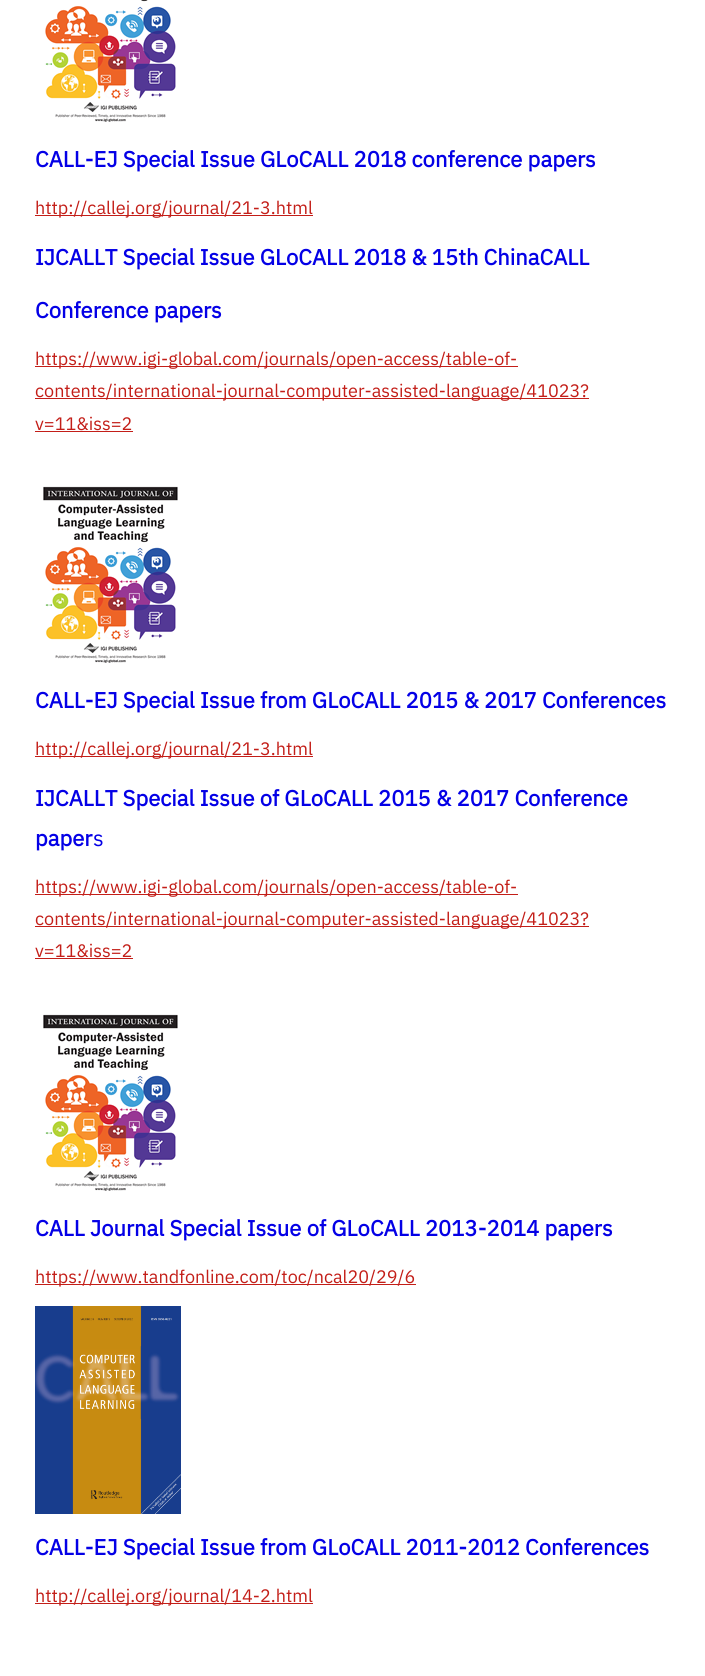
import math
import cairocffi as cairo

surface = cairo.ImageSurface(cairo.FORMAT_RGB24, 705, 1676)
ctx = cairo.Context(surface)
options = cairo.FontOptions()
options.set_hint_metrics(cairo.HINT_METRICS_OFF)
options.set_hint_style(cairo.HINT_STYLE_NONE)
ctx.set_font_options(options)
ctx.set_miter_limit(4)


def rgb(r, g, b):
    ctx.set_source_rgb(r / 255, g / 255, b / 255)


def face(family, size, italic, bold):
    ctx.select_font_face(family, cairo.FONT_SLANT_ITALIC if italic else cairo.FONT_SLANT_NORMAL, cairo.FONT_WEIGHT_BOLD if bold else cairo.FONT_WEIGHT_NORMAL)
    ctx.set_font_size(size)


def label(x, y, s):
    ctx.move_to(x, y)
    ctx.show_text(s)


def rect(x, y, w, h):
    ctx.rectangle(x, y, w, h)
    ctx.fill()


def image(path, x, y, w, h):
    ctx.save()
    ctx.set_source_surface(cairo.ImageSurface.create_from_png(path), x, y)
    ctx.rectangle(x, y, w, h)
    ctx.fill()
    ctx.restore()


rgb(255, 255, 255)
ctx.paint()
image('image0.png', 45, 0, 131, 122)
face('IBM Plex Sans', 22, 0, 1)
rgb(4, 0, 230)
label(35, 167, 'CALL-EJ Special Issue GLoCALL 2018 conference papers')
rgb(195, 30, 24)
rect(35, 215, 278, 1)
face('IBM Plex Sans', 18, 0, 0)
label(35, 214, 'http://callej.org/journal/21-3.html')
face('IBM Plex Sans', 22, 0, 1)
rgb(4, 0, 230)
label(35, 265, 'IJCALLT Special Issue GLoCALL 2018 & 15th ChinaCALL')
label(35, 318, 'Conference papers')
rgb(195, 30, 24)
rect(35, 366, 483, 1)
face('IBM Plex Sans', 18, 0, 0)
label(35, 365, 'https://www.igi-global.com/journals/open-access/table-of-')
rect(35, 398, 554, 1)
label(35, 397, 'contents/international-journal-computer-assisted-language/41023?')
label(35, 430, 'v=11&iss=2')
rect(35, 431, 98, 1)
image('image1.png', 43, 486, 135, 177)
face('IBM Plex Sans', 22, 0, 1)
rgb(4, 0, 230)
label(35, 708, 'CALL-EJ Special Issue from GLoCALL 2015 & 2017 Conferences')
rgb(195, 30, 24)
rect(35, 756, 278, 1)
face('IBM Plex Sans', 18, 0, 0)
label(35, 755, 'http://callej.org/journal/21-3.html')
face('IBM Plex Sans', 22, 0, 1)
rgb(4, 0, 230)
label(35, 806, 'IJCALLT Special Issue of GLoCALL 2015 & 2017 Conference')
label(35, 846, 'paper')
face('IBM Plex Sans', 22, 0, 0)
label(93, 846, 's')
rgb(195, 30, 24)
rect(35, 894, 483, 1)
face('IBM Plex Sans', 18, 0, 0)
label(35, 893, 'https://www.igi-global.com/journals/open-access/table-of-')
rect(35, 926, 554, 1)
label(35, 925, 'contents/international-journal-computer-assisted-language/41023?')
label(35, 957, 'v=11&iss=2')
rect(35, 958, 98, 1)
image('image1.png', 43, 1014, 135, 177)
face('IBM Plex Sans', 22, 0, 1)
rgb(4, 0, 230)
label(35, 1236, 'CALL Journal Special Issue of GLoCALL 2013-2014 papers')
rgb(195, 30, 24)
rect(35, 1284, 381, 1)
face('IBM Plex Sans', 18, 0, 0)
label(35, 1283, 'https://www.tandfonline.com/toc/ncal20/29/6')
image('image2.png', 35, 1306, 146, 208)
face('IBM Plex Sans', 22, 0, 1)
rgb(4, 0, 230)
label(35, 1555, 'CALL-EJ Special Issue from GLoCALL 2011-2012 Conferences')
rgb(195, 30, 24)
rect(35, 1603, 278, 1)
face('IBM Plex Sans', 18, 0, 0)
label(35, 1602, 'http://callej.org/journal/14-2.html')
surface.write_to_png('render.png')
